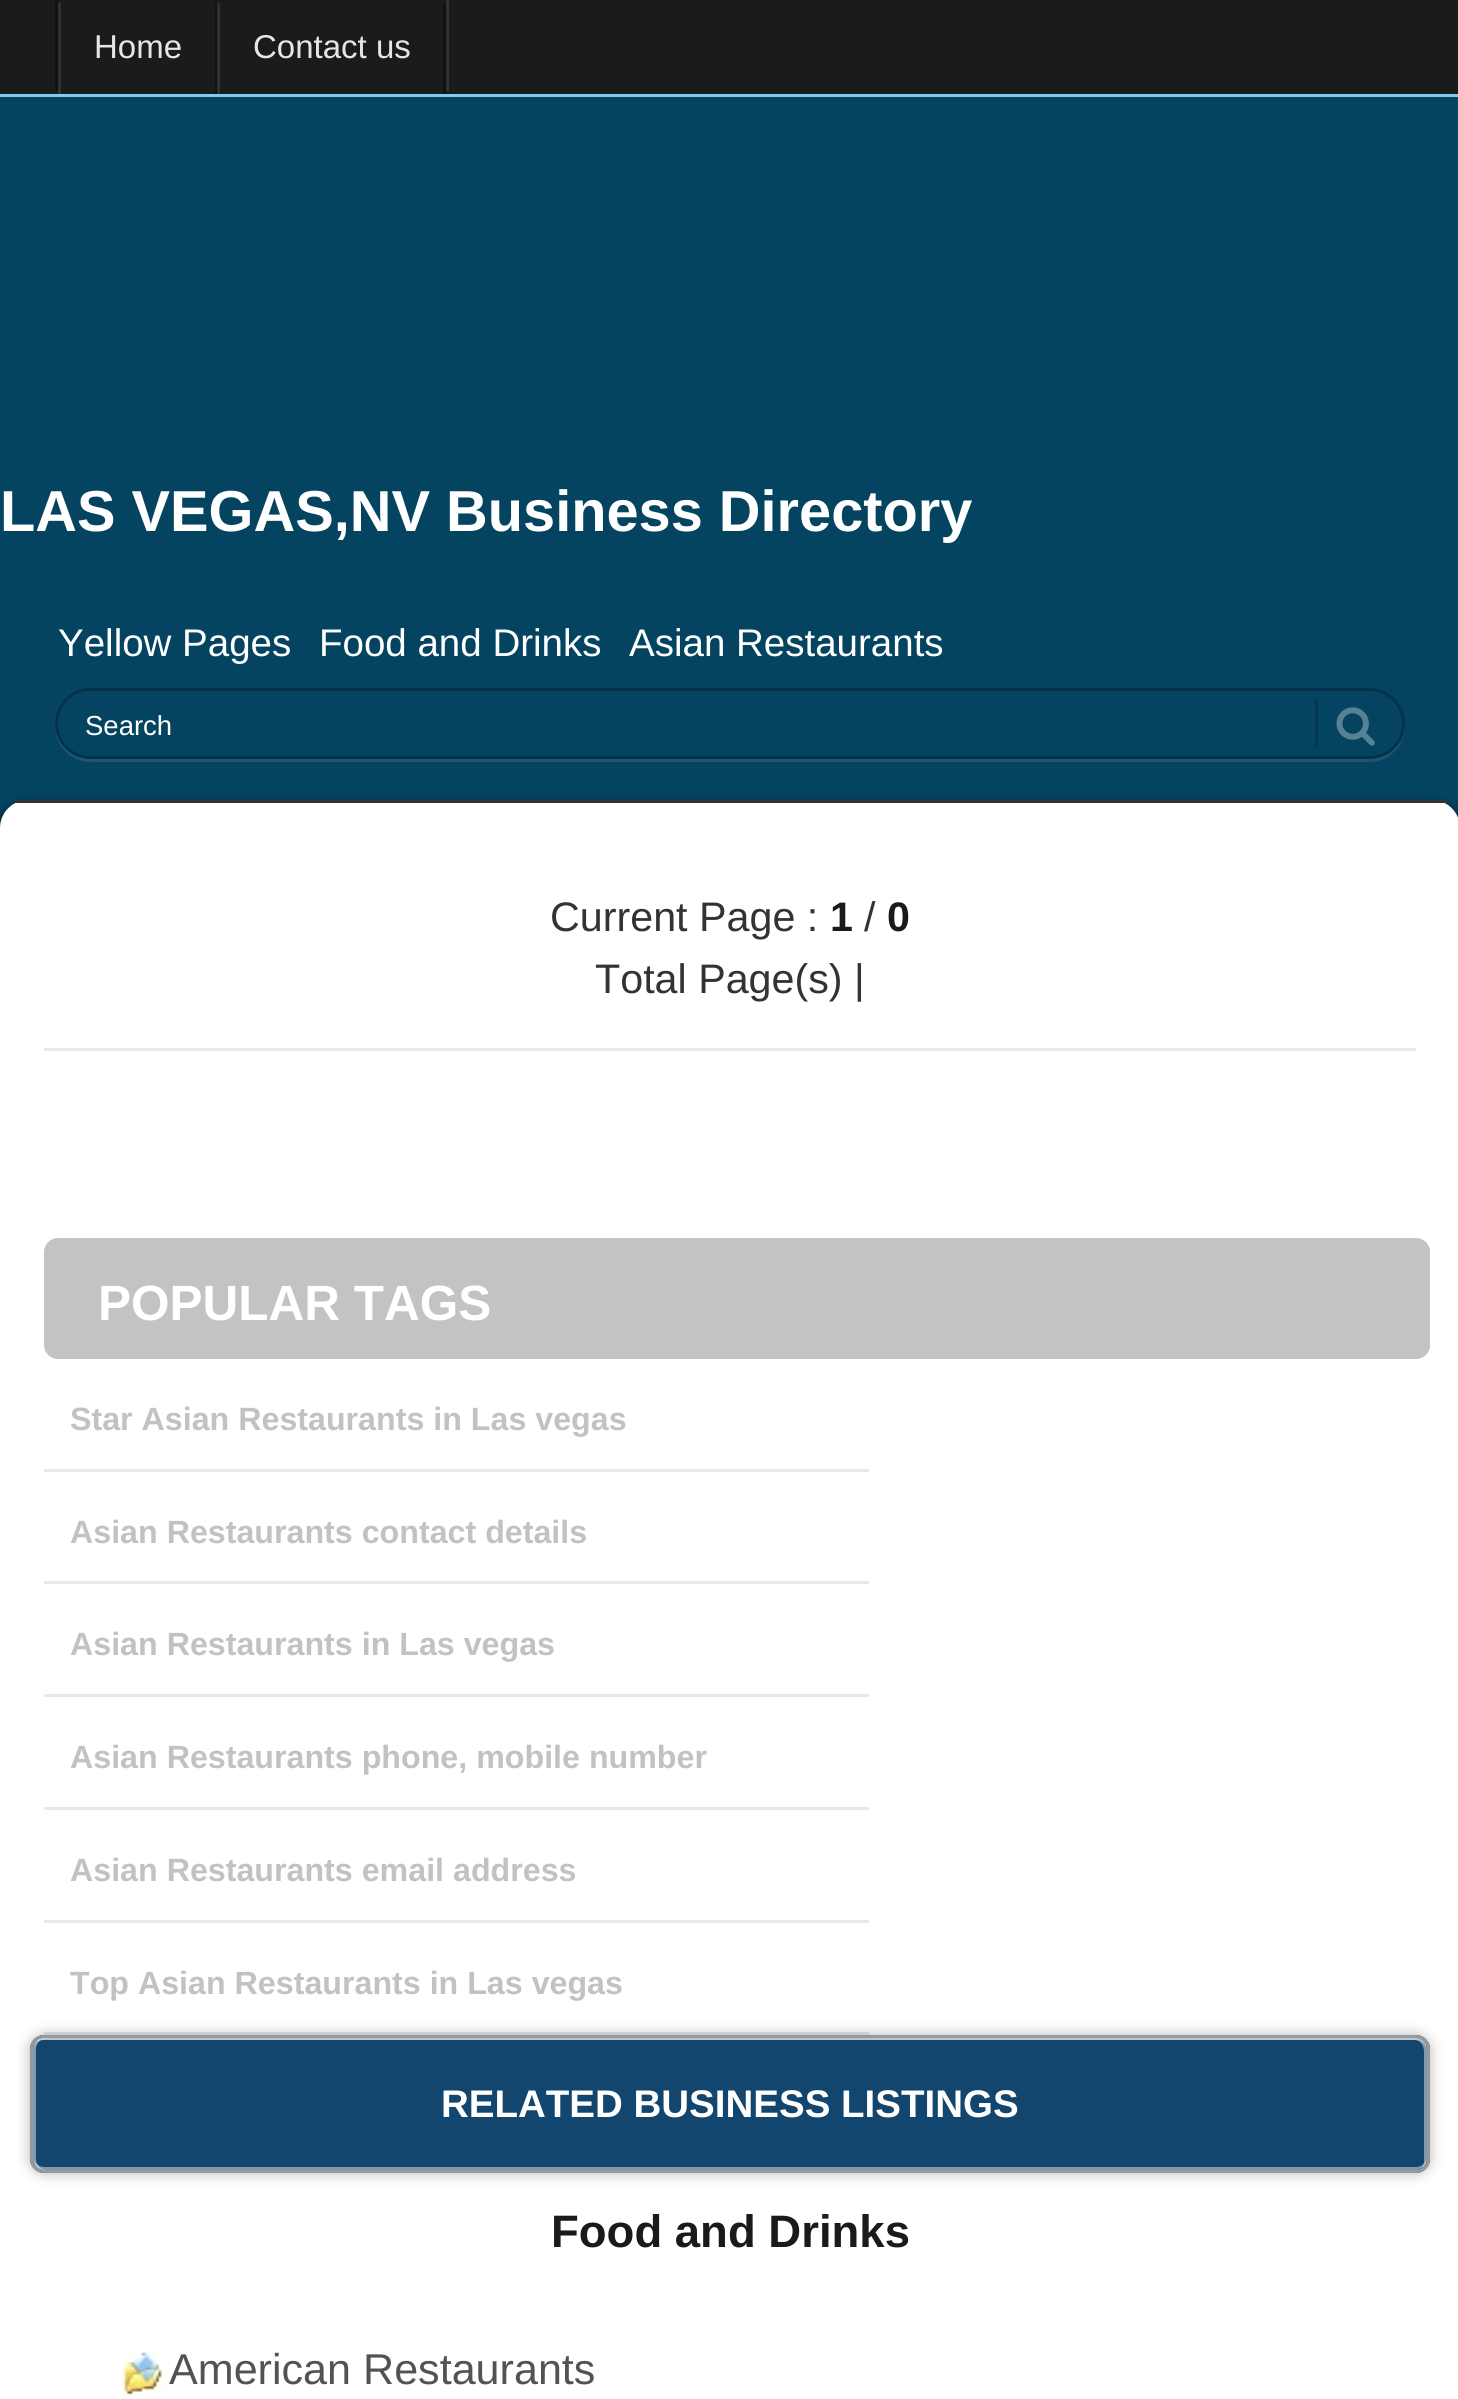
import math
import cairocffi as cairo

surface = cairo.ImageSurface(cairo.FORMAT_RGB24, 1458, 2399)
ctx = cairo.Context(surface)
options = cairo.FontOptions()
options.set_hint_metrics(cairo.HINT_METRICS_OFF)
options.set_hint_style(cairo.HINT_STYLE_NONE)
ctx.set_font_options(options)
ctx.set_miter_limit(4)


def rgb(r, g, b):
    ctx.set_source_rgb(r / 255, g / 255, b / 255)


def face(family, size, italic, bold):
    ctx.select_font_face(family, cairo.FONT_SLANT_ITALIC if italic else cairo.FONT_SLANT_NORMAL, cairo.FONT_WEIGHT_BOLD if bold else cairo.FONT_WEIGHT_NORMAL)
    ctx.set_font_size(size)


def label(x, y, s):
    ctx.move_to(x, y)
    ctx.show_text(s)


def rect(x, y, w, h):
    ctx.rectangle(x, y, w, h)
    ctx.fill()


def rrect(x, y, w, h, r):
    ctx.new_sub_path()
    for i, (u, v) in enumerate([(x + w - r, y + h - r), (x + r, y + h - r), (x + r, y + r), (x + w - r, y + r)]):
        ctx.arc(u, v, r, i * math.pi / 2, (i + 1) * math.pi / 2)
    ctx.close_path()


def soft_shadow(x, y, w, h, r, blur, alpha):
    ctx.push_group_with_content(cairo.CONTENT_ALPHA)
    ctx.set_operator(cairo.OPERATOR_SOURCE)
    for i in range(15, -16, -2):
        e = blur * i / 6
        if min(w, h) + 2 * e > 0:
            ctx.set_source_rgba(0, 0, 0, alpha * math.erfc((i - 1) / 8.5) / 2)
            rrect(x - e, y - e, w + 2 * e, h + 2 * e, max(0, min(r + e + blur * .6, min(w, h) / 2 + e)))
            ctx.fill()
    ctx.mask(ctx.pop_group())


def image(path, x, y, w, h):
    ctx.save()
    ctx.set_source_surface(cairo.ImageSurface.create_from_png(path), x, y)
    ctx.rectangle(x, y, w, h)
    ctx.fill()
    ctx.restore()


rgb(27, 27, 27)
ctx.paint()
rgb(50, 50, 50)
rect(218, 3, 2, 91)
rgb(49, 49, 49)
rect(446, 0, 3, 91)
rgb(18, 18, 18)
rect(55, 0, 3, 91)
rect(215, 3, 2, 91)
rgb(42, 42, 42)
rect(217, 3, 1, 91)
rgb(49, 49, 49)
rect(58, 3, 3, 91)
face('Liberation Sans', 33, 0, 0)
rgb(230, 230, 230)
label(94, 58, 'Home')
rgb(18, 18, 18)
rect(443, 3, 3, 91)
rgb(230, 230, 230)
label(253, 58, 'Contact us')
rgb(4, 68, 97)
rect(0, 97, 1458, 731)
rgb(122, 206, 244)
rect(0, 94, 1458, 3)
face('Liberation Sans', 57.75, 0, 1)
rgb(255, 255, 255)
label(0, 531, 'LAS VEGAS,NV Business Directory')
face('Liberation Sans', 38.5, 0, 0)
label(58, 656, 'Yellow Pages')
label(319, 656, 'Food and Drinks')
label(629, 656, 'Asian Restaurants')
rgb(29, 87, 113)
ctx.new_path()
ctx.move_to(55, 725)
ctx.line_to(55, 726)
ctx.curve_to(55, 746, 71, 762, 91, 762)
ctx.line_to(1369, 762)
ctx.curve_to(1388, 762, 1404, 747, 1405, 728)
ctx.curve_to(1403, 745, 1388, 759, 1370, 759)
ctx.line_to(91, 759)
ctx.curve_to(71, 759, 56, 744, 55, 725)
ctx.close_path()
ctx.fill()
rrect(56.5, 689.5, 1347, 68, 34)
ctx.set_source_rgba(0, 0, 0, 0.25)
ctx.set_line_width(3)
ctx.stroke()
face('Liberation Sans', 27.5, 0, 0)
rgb(255, 255, 255)
label(85, 735, 'Search')
rgb(5, 55, 78)
rect(1315, 699, 3, 49)
image('image0.png', 1336, 707, 39, 39)
rgb(1, 1, 1)
soft_shadow(17, 809, 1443, 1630, 19, 7, 0.87)
soft_shadow(0, 809, 1444, 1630, 19, 7, 0.87)
rgb(255, 255, 255)
rrect(0, 800, 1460, 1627, 28)
ctx.fill()
rgb(51, 51, 51)
rect(14, 800, 1433, 3)
rgb(233, 233, 233)
rect(44, 1048, 1372, 3)
face('Liberation Sans', 41.25, 0, 0)
rgb(51, 51, 51)
label(550, 931, 'Current Page :')
face('Liberation Sans', 41.25, 0, 1)
rgb(26, 26, 26)
label(830, 931, '1')
face('Liberation Sans', 41.25, 0, 0)
rgb(51, 51, 51)
label(864, 931, '/')
face('Liberation Sans', 41.25, 0, 1)
rgb(26, 26, 26)
label(887, 931, '0')
face('Liberation Sans', 41.25, 0, 0)
rgb(51, 51, 51)
label(595, 993, 'Total Page(s) |')
rgb(195, 195, 195)
rrect(44, 1238, 1386, 121, 14)
ctx.fill()
ctx.new_path()
ctx.move_to(1430, 1345)
ctx.line_to(1430, 1251)
ctx.curve_to(1430, 1249, 1429, 1247, 1428, 1245)
ctx.line_to(1427, 1251)
ctx.line_to(1427, 1329)
ctx.curve_to(1427, 1337, 1430, 1358, 1416, 1358)
ctx.curve_to(1424, 1358, 1430, 1352, 1430, 1345)
ctx.close_path()
ctx.fill()
face('Liberation Sans', 49.5, 0, 1)
rgb(255, 255, 255)
label(98, 1320, 'POPULAR TAGS')
rgb(233, 233, 233)
rect(44, 1469, 825, 3)
face('Liberation Sans', 32.2, 0, 1)
rgb(194, 194, 194)
label(70, 1430, 'Star Asian Restaurants in Las vegas')
rgb(233, 233, 233)
rect(44, 1581, 825, 3)
rgb(194, 194, 194)
label(70, 1543, 'Asian Restaurants contact details')
rgb(233, 233, 233)
rect(44, 1694, 825, 3)
rgb(194, 194, 194)
label(70, 1655, 'Asian Restaurants in Las vegas')
rgb(233, 233, 233)
rect(44, 1807, 825, 3)
rgb(194, 194, 194)
label(70, 1768, 'Asian Restaurants phone, mobile number')
rgb(233, 233, 233)
rect(44, 1920, 825, 3)
rgb(194, 194, 194)
label(70, 1881, 'Asian Restaurants email address')
rgb(233, 233, 233)
rect(44, 2032, 825, 3)
rgb(194, 194, 194)
label(70, 1994, 'Top Asian Restaurants in Las vegas')
rgb(0, 0, 0)
soft_shadow(30, 2035, 1400, 138, 14, 7, 0.28)
rgb(18, 70, 111)
rrect(30, 2035, 1400, 138, 14)
ctx.fill()
rgb(125, 153, 176)
ctx.new_path()
ctx.move_to(41, 2040)
ctx.line_to(1414, 2040)
ctx.curve_to(1420, 2040, 1424, 2045, 1424, 2052)
ctx.line_to(1424, 2162)
ctx.curve_to(1424, 2164, 1423, 2166, 1422, 2168)
ctx.curve_to(1425, 2166, 1427, 2163, 1427, 2159)
ctx.line_to(1427, 2049)
ctx.curve_to(1427, 2043, 1422, 2038, 1416, 2038)
ctx.line_to(44, 2038)
ctx.curve_to(41, 2038, 38, 2039, 36, 2041)
ctx.close_path()
ctx.fill()
ctx.set_source_rgba(1, 1, 1, 0.45)
ctx.new_path()
ctx.move_to(44, 2038)
ctx.curve_to(38, 2038, 33, 2043, 33, 2049)
ctx.line_to(33, 2159)
ctx.curve_to(33, 2165, 38, 2170, 44, 2170)
ctx.line_to(47, 2170)
ctx.curve_to(41, 2170, 36, 2165, 36, 2159)
ctx.line_to(36, 2049)
ctx.curve_to(36, 2043, 41, 2038, 47, 2038)
ctx.close_path()
ctx.fill()
ctx.new_path()
ctx.move_to(33, 2156)
ctx.curve_to(33, 2163, 36, 2170, 44, 2170)
ctx.line_to(1416, 2170)
ctx.curve_to(1424, 2170, 1427, 2163, 1427, 2156)
ctx.curve_to(1427, 2162, 1422, 2167, 1416, 2167)
ctx.line_to(44, 2167)
ctx.curve_to(38, 2167, 33, 2162, 33, 2156)
ctx.close_path()
ctx.fill()
ctx.new_path()
ctx.move_to(44, 2040)
ctx.line_to(1416, 2040)
ctx.curve_to(1422, 2040, 1427, 2045, 1427, 2052)
ctx.curve_to(1427, 2045, 1424, 2038, 1416, 2038)
ctx.line_to(44, 2038)
ctx.curve_to(36, 2038, 33, 2045, 33, 2052)
ctx.curve_to(33, 2045, 38, 2040, 44, 2040)
ctx.close_path()
ctx.fill()
rrect(31.5, 2036.5, 1397, 135, 12.5)
rgb(153, 153, 153)
ctx.stroke()
face('Liberation Sans', 38.5, 0, 1)
rgb(255, 255, 255)
label(441, 2117, 'RELATED BUSINESS LISTINGS')
face('Liberation Sans', 45.5, 0, 1)
rgb(26, 26, 26)
label(551, 2247, 'Food and Drinks')
image('image1.png', 122, 2350, 43, 47)
face('Liberation Sans', 43.1, 0, 0)
rgb(83, 83, 83)
label(169, 2384, 'American Restaurants')
surface.write_to_png('render.png')
